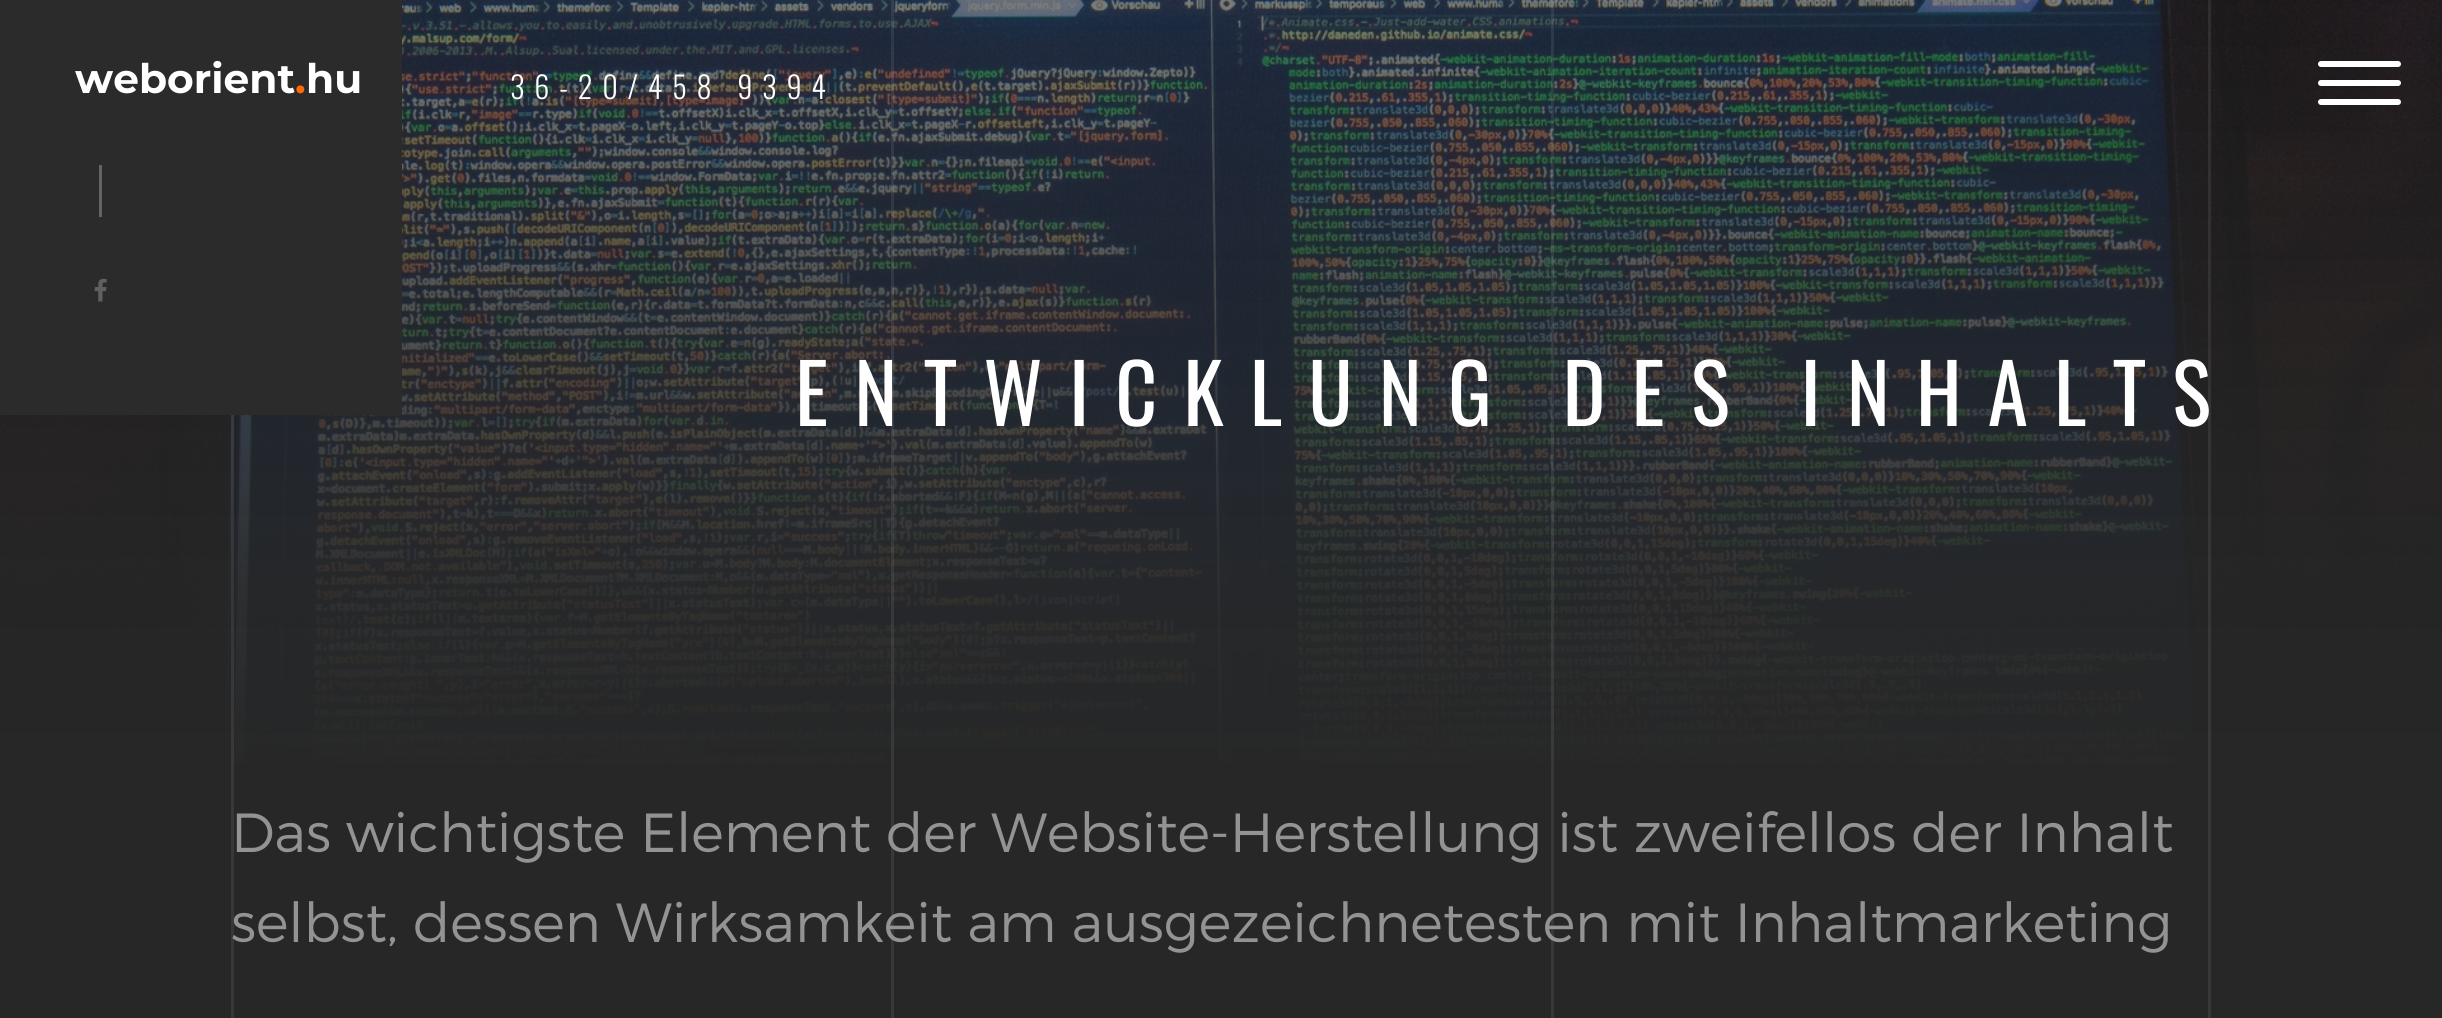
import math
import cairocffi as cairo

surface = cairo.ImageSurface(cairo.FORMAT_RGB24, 2442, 1018)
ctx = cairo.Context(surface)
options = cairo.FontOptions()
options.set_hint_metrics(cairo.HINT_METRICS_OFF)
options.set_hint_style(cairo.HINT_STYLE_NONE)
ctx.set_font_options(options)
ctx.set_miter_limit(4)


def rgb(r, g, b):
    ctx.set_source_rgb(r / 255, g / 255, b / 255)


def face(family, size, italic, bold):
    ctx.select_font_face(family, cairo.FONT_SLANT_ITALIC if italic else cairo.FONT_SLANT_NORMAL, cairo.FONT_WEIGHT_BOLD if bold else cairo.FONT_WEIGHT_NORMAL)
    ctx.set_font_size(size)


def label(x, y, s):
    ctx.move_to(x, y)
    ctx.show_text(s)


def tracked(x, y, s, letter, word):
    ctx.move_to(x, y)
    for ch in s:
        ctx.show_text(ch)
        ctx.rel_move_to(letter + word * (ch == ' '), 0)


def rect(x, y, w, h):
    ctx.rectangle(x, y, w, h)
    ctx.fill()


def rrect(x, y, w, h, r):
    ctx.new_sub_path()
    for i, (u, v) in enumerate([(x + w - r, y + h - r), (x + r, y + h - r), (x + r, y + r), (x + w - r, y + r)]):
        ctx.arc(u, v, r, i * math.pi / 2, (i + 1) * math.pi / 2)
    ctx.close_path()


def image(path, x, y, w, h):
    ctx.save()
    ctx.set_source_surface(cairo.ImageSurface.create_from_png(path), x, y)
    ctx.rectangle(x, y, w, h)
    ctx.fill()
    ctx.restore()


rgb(39, 39, 39)
ctx.paint()
image('image1.png', 0, 0, 2442, 763)
gradient = cairo.LinearGradient(1221, 787, 1221, 0)
gradient.add_color_stop_rgba(0, 0.153, 0.153, 0.153, 1)
gradient.add_color_stop_rgba(0.26, 0.153, 0.153, 0.153, 0.95)
gradient.add_color_stop_rgba(1, 0.153, 0.153, 0.153, 0.6)
ctx.set_source(gradient)
rect(0, 0, 2442, 763)
rgb(43, 43, 43)
rect(0, 0, 402, 415)
face('Montserrat', 40.75, 0, 1)
rgb(255, 255, 255)
label(75, 93, 'weborient')
rgb(255, 106, 7)
label(295, 93, '.')
rgb(255, 255, 255)
label(306, 93, 'hu')
face('Oswald Light', 30.25, 0, 0)
tracked(510, 99, '36-20/458 9394', 9.75, 0)
rrect(2318, 61, 83, 6, 3)
ctx.fill()
rrect(2318, 80, 83, 6, 3)
ctx.fill()
rrect(2318, 99, 83, 6, 3)
ctx.fill()
rgb(100, 100, 100)
rect(99, 165, 3, 52)
image('image0.png', 94, 278, 13, 24)
ctx.set_source_rgba(1, 1, 1, 0.08)
rect(231, 415, 3, 372)
rect(891, 0, 3, 787)
rect(1551, 0, 3, 787)
rect(2208, 0, 3, 787)
face('Oswald', 81.6, 0, 0)
rgb(255, 255, 255)
tracked(795, 426, 'ENTWICKLUNG DES INHALTS', 26.1, 0)
rgb(56, 56, 56)
rect(231, 787, 3, 231)
rect(891, 787, 3, 231)
rect(1551, 787, 3, 231)
rect(2208, 787, 3, 231)
face('Montserrat Light', 55, 0, 0)
rgb(147, 147, 147)
label(231, 852, 'Das wichtigste Element der Website-Herstellung ist zweifellos der Inhalt')
label(231, 942, 'selbst, dessen Wirksamkeit am ausgezeichnetesten mit Inhaltmarketing')
surface.write_to_png('render.png')
